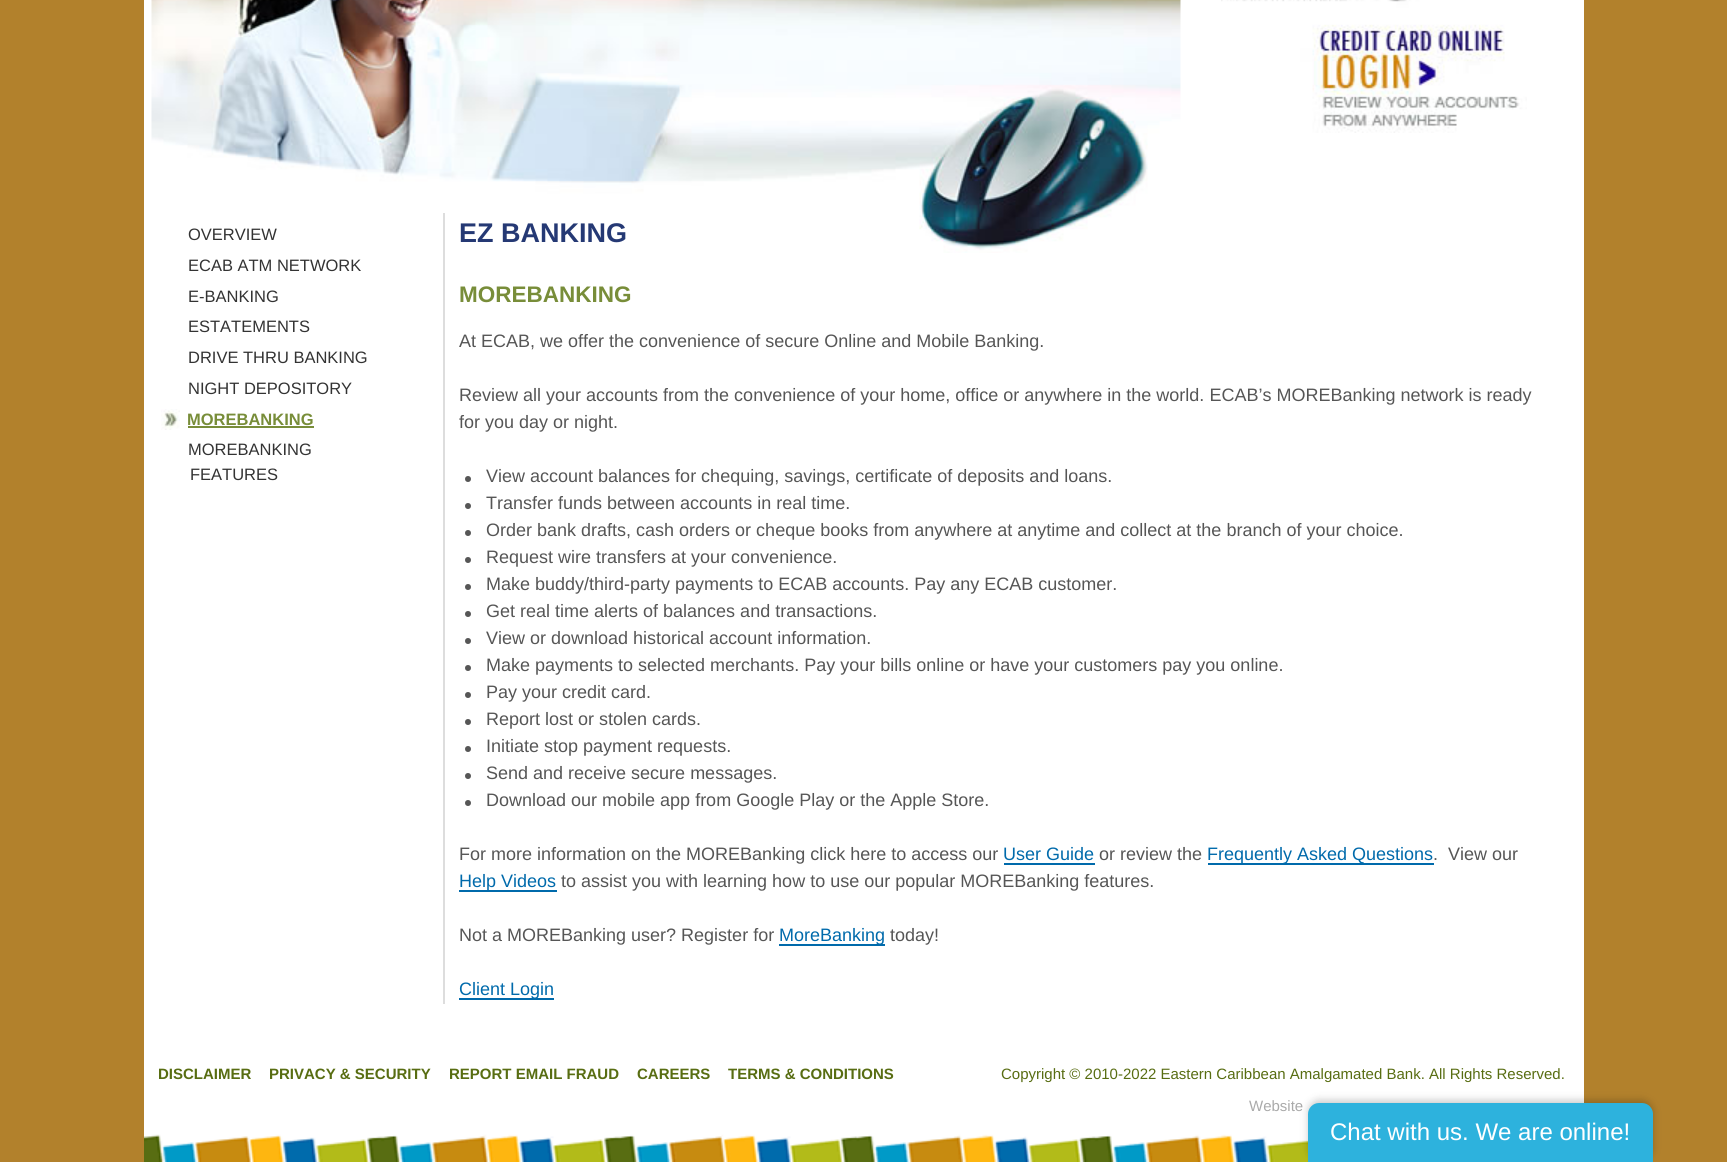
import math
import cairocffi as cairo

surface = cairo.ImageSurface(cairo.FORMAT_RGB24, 1727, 1162)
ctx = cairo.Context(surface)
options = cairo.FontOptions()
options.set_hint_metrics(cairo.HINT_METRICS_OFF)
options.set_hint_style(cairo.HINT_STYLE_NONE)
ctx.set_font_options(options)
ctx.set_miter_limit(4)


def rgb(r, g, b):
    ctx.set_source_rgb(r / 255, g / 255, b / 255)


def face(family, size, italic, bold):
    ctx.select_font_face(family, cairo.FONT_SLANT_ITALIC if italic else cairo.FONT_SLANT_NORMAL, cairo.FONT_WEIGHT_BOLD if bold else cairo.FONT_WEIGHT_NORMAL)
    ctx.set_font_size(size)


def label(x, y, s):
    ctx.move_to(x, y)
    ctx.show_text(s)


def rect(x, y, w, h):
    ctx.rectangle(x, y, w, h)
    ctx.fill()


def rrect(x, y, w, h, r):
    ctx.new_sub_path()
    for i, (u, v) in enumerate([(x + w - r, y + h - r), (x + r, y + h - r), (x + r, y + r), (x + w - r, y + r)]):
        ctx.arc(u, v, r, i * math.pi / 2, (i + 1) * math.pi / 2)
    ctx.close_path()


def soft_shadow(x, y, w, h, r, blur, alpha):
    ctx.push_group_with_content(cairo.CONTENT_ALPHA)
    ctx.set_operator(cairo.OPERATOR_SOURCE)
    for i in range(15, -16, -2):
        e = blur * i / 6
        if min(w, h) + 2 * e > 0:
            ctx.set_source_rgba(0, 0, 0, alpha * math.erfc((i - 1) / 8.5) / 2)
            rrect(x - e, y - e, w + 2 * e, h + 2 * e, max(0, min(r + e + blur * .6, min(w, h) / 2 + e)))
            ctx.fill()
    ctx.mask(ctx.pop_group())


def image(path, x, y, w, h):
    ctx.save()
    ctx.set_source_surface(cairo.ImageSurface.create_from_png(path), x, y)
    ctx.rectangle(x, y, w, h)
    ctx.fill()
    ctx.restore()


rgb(178, 129, 44)
ctx.paint()
rgb(255, 255, 255)
rect(144, 0, 1440, 1134)
image('image0.png', 151, 0, 1030, 253)
image('image1.png', 1221, 0, 306, 133)
face('Liberation Sans', 16.5, 0, 0)
rgb(51, 51, 51)
label(188, 240, 'OVERVIEW')
label(188, 271, 'ECAB ATM NETWORK')
label(188, 302, 'E-BANKING')
label(188, 332, 'ESTATEMENTS')
label(188, 363, 'DRIVE THRU BANKING')
label(188, 394, 'NIGHT DEPOSITORY')
image('image2.png', 161, 409, 19, 21)
face('Liberation Sans', 16.5, 0, 1)
rgb(120, 141, 57)
label(187, 425, 'MOREBANKING')
rect(188, 426, 126, 2)
face('Liberation Sans', 16.5, 0, 0)
rgb(51, 51, 51)
label(188, 455, 'MOREBANKING')
label(190, 480, 'FEATURES')
rgb(221, 221, 221)
rect(443, 213, 2, 791)
face('Liberation Sans', 27, 0, 1)
rgb(37, 57, 116)
label(459, 242, 'EZ BANKING')
face('Liberation Sans', 22.5, 0, 1)
rgb(120, 141, 57)
label(459, 302, 'MOREBANKING')
face('Liberation Sans', 18, 0, 0)
rgb(86, 86, 86)
label(459, 347, 'At ECAB, we offer the convenience of secure Online and Mobile Banking.')
label(459, 401, 'Review all your accounts from the convenience of your home, office or anywhere in the world. ECAB’s MOREBanking network is ready')
label(459, 428, 'for you day or night.')
ctx.new_path()
ctx.arc(468, 479, 3, 0, 2 * math.pi)
ctx.fill()
label(486, 482, 'View account balances for chequing, savings, certificate of deposits and loans.')
ctx.new_path()
ctx.arc(468, 506, 3, 0, 2 * math.pi)
ctx.fill()
label(486, 509, 'Transfer funds between accounts in real time.')
ctx.new_path()
ctx.arc(468, 533, 3, 0, 2 * math.pi)
ctx.fill()
label(486, 536, 'Order bank drafts, cash orders or cheque books from anywhere at anytime and collect at the branch of your choice.')
ctx.new_path()
ctx.arc(468, 560, 3, 0, 2 * math.pi)
ctx.fill()
label(486, 563, 'Request wire transfers at your convenience.')
ctx.new_path()
ctx.arc(468, 587, 3, 0, 2 * math.pi)
ctx.fill()
label(486, 590, 'Make buddy/third-party payments to ECAB accounts. Pay any ECAB customer.')
ctx.new_path()
ctx.arc(468, 614, 3, 0, 2 * math.pi)
ctx.fill()
label(486, 617, 'Get real time alerts of balances and transactions.')
ctx.new_path()
ctx.arc(468, 641, 3, 0, 2 * math.pi)
ctx.fill()
label(486, 644, 'View or download historical account information.')
ctx.new_path()
ctx.arc(468, 668, 3, 0, 2 * math.pi)
ctx.fill()
label(486, 671, 'Make payments to selected merchants. Pay your bills online or have your customers pay you online.')
ctx.new_path()
ctx.arc(468, 695, 3, 0, 2 * math.pi)
ctx.fill()
label(486, 698, 'Pay your credit card.')
ctx.new_path()
ctx.arc(468, 722, 3, 0, 2 * math.pi)
ctx.fill()
label(486, 725, 'Report lost or stolen cards.')
ctx.new_path()
ctx.arc(468, 749, 3, 0, 2 * math.pi)
ctx.fill()
label(486, 752, 'Initiate stop payment requests.')
ctx.new_path()
ctx.arc(468, 776, 3, 0, 2 * math.pi)
ctx.fill()
label(486, 779, 'Send and receive secure messages.')
ctx.new_path()
ctx.arc(468, 803, 3, 0, 2 * math.pi)
ctx.fill()
label(486, 806, 'Download our mobile app from Google Play or the Apple Store.')
label(459, 860, 'For more information on the MOREBanking click here to access our')
rgb(0, 106, 171)
label(1003, 860, 'User Guide')
rect(1004, 863, 91, 2)
rgb(86, 86, 86)
label(1099, 860, 'or review the')
rgb(0, 106, 171)
rect(1208, 863, 226, 2)
label(1207, 860, 'Frequently Asked Questions')
rgb(86, 86, 86)
label(1433, 860, '.  View our')
rgb(0, 106, 171)
rect(459, 890, 98, 2)
label(459, 887, 'Help Videos')
rgb(86, 86, 86)
label(561, 887, 'to assist you with learning how to use our popular MOREBanking features.')
label(459, 941, 'Not a MOREBanking user? Register for')
rgb(0, 106, 171)
rect(779, 944, 106, 2)
label(779, 941, 'MoreBanking')
rgb(86, 86, 86)
label(890, 941, 'today!')
rgb(0, 106, 171)
rect(459, 998, 95, 2)
label(459, 995, 'Client Login')
image('image3.png', 144, 1134, 1164, 28)
face('Liberation Sans', 15, 0, 1)
rgb(88, 109, 18)
label(158, 1079, 'DISCLAIMER')
label(269, 1079, 'PRIVACY & SECURITY')
label(449, 1079, 'REPORT EMAIL FRAUD')
label(637, 1079, 'CAREERS')
label(728, 1079, 'TERMS & CONDITIONS')
face('Liberation Sans', 15, 0, 0)
label(1001, 1079, 'Copyright © 2010-2022 Eastern Caribbean Amalgamated Bank. All Rights Reserved.')
rgb(170, 170, 170)
label(1249, 1111, 'Website')
rgb(0, 0, 0)
soft_shadow(1308, 1100, 345, 60, 11, 4, 0.2)
rgb(45, 178, 221)
ctx.new_path()
ctx.move_to(1319, 1103)
ctx.line_to(1642, 1103)
ctx.curve_to(1648, 1103, 1653, 1108, 1653, 1114)
ctx.line_to(1653, 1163)
ctx.line_to(1308, 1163)
ctx.line_to(1308, 1114)
ctx.curve_to(1308, 1108, 1313, 1103, 1319, 1103)
ctx.close_path()
ctx.fill()
face('Liberation Sans', 24, 0, 0)
rgb(255, 255, 255)
label(1330, 1140, 'Chat with us. We are online!')
surface.write_to_png('render.png')
